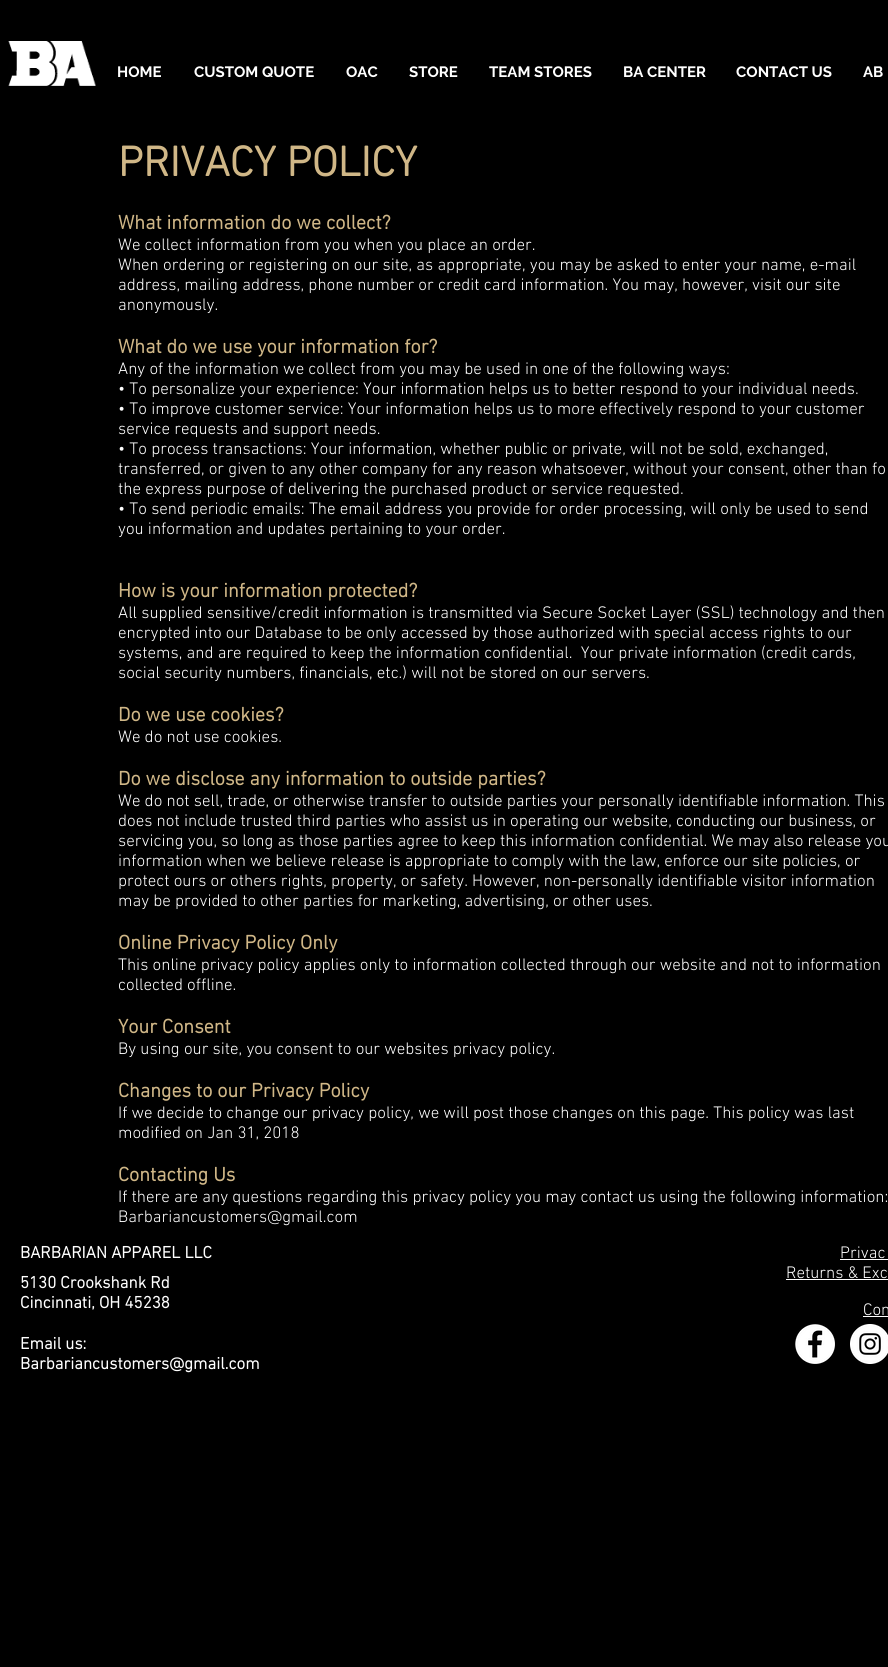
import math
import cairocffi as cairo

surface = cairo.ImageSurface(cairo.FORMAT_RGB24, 888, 1667)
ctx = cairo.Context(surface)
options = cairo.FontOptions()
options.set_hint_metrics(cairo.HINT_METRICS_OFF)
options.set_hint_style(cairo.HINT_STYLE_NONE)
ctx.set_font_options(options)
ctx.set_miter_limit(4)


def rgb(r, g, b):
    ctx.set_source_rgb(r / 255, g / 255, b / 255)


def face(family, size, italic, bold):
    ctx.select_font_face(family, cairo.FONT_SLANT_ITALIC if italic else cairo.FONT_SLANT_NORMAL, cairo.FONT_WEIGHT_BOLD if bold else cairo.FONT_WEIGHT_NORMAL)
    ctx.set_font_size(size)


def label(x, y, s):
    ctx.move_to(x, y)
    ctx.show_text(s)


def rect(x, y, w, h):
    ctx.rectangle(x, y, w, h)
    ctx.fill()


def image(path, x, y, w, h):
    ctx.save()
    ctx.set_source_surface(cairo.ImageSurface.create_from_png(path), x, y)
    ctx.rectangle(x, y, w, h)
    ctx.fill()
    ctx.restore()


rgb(0, 0, 0)
ctx.paint()
image('image0.png', 8, 41, 88, 45)
face('Raleway', 15, 0, 1)
rgb(255, 255, 255)
label(117, 77, 'HOME')
label(194, 77, 'CUSTOM QUOTE')
label(346, 77, 'OAC')
label(409, 77, 'STORE')
label(489, 77, 'TEAM STORES')
label(623, 77, 'BA CENTER')
label(736, 77, 'CONTACT US')
label(863, 77, 'AB')
face('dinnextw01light', 43, 0, 1)
rgb(208, 183, 135)
label(118, 176, 'PRIVACY POLICY')
face('dinnextw01light', 20, 0, 1)
label(118, 229, 'What information do we collect?')
face('dinnextw01light Light', 17, 0, 0)
rgb(255, 255, 255)
label(118, 250, 'We collect information from you when you place an order.')
label(118, 270, 'When ordering or registering on our site, as appropriate, you may be asked to enter your name, e-mail')
label(118, 290, 'address, mailing address, phone number or credit card information. You may, however, visit our site')
label(118, 310, 'anonymously.')
face('dinnextw01light', 20, 0, 1)
rgb(208, 183, 135)
label(118, 353, 'What do we use your information for?')
face('dinnextw01light Light', 17, 0, 0)
rgb(255, 255, 255)
label(118, 374, 'Any of the information we collect from you may be used in one of the following ways:')
label(118, 394, '• To personalize your experience: Your information helps us to better respond to your individual needs.')
label(118, 414, '• To improve customer service: Your information helps us to more effectively respond to your customer')
label(118, 434, 'service requests and support needs.')
label(118, 454, '• To process transactions: Your information, whether public or private, will not be sold, exchanged,')
label(118, 474, 'transferred, or given to any other company for any reason whatsoever, without your consent, other than fo')
label(118, 494, 'the express purpose of delivering the purchased product or service requested.')
label(118, 514, '• To send periodic emails: The email address you provide for order processing, will only be used to send')
label(118, 534, 'you information and updates pertaining to your order.')
face('dinnextw01light', 20, 0, 1)
rgb(208, 183, 135)
label(118, 597, 'How is your information protected?')
face('dinnextw01light Light', 17, 0, 0)
rgb(255, 255, 255)
label(118, 618, 'All supplied sensitive/credit information is transmitted via Secure Socket Layer (SSL) technology and then')
label(118, 638, 'encrypted into our Database to be only accessed by those authorized with special access rights to our')
label(118, 658, 'systems, and are required to keep the information confidential.  Your private information (credit cards,')
label(118, 678, 'social security numbers, financials, etc.) will not be stored on our servers.')
face('dinnextw01light', 20, 0, 1)
rgb(208, 183, 135)
label(118, 721, 'Do we use cookies?')
face('dinnextw01light Light', 17, 0, 0)
rgb(255, 255, 255)
label(118, 742, 'We do not use cookies.')
face('dinnextw01light', 20, 0, 1)
rgb(208, 183, 135)
label(118, 785, 'Do we disclose any information to outside parties?')
face('dinnextw01light Light', 17, 0, 0)
rgb(255, 255, 255)
label(118, 806, 'We do not sell, trade, or otherwise transfer to outside parties your personally identifiable information. This')
label(118, 826, 'does not include trusted third parties who assist us in operating our website, conducting our business, or')
label(118, 846, 'servicing you, so long as those parties agree to keep this information confidential. We may also release you')
label(118, 866, 'information when we believe release is appropriate to comply with the law, enforce our site policies, or')
label(118, 886, 'protect ours or others rights, property, or safety. However, non-personally identifiable visitor information')
label(118, 906, 'may be provided to other parties for marketing, advertising, or other uses.')
face('dinnextw01light', 20, 0, 1)
rgb(208, 183, 135)
label(118, 949, 'Online Privacy Policy Only')
face('dinnextw01light Light', 17, 0, 0)
rgb(255, 255, 255)
label(118, 970, 'This online privacy policy applies only to information collected through our website and not to information')
label(118, 990, 'collected offline.')
face('dinnextw01light', 20, 0, 1)
rgb(208, 183, 135)
label(118, 1033, 'Your Consent')
face('dinnextw01light Light', 17, 0, 0)
rgb(255, 255, 255)
label(118, 1054, 'By using our site, you consent to our websites privacy policy.')
face('dinnextw01light', 20, 0, 1)
rgb(208, 183, 135)
label(118, 1097, 'Changes to our Privacy Policy')
face('dinnextw01light Light', 17, 0, 0)
rgb(255, 255, 255)
label(118, 1118, 'If we decide to change our privacy policy, we will post those changes on this page. This policy was last')
label(118, 1138, 'modified on Jan 31, 2018')
face('dinnextw01light', 20, 0, 1)
rgb(208, 183, 135)
label(118, 1181, 'Contacting Us')
face('dinnextw01light Light', 17, 0, 0)
rgb(255, 255, 255)
label(118, 1202, 'If there are any questions regarding this privacy policy you may contact us using the following information:')
label(118, 1222, 'Barbariancustomers@gmail.com')
face('dinnextw01light', 17, 0, 1)
label(20, 1258, 'BARBARIAN APPAREL LLC')
face('dinnextw01light Light', 17, 0, 0)
label(840, 1258, 'Privac')
rect(840, 1259, 48, 1)
label(786, 1278, 'Returns & Exc')
rect(786, 1279, 102, 1)
face('dinnextw01light', 17, 0, 1)
label(20, 1288, '5130 Crookshank Rd')
label(20, 1308, 'Cincinnati, OH 45238')
label(20, 1349, 'Email us:')
label(20, 1369, 'Barbariancustomers@gmail.com')
face('dinnextw01light Light', 17, 0, 0)
label(863, 1315, 'Con')
rect(863, 1316, 25, 1)
image('image1.png', 795, 1324, 40, 40)
image('image2.png', 850, 1324, 38, 40)
surface.write_to_png('render.png')
